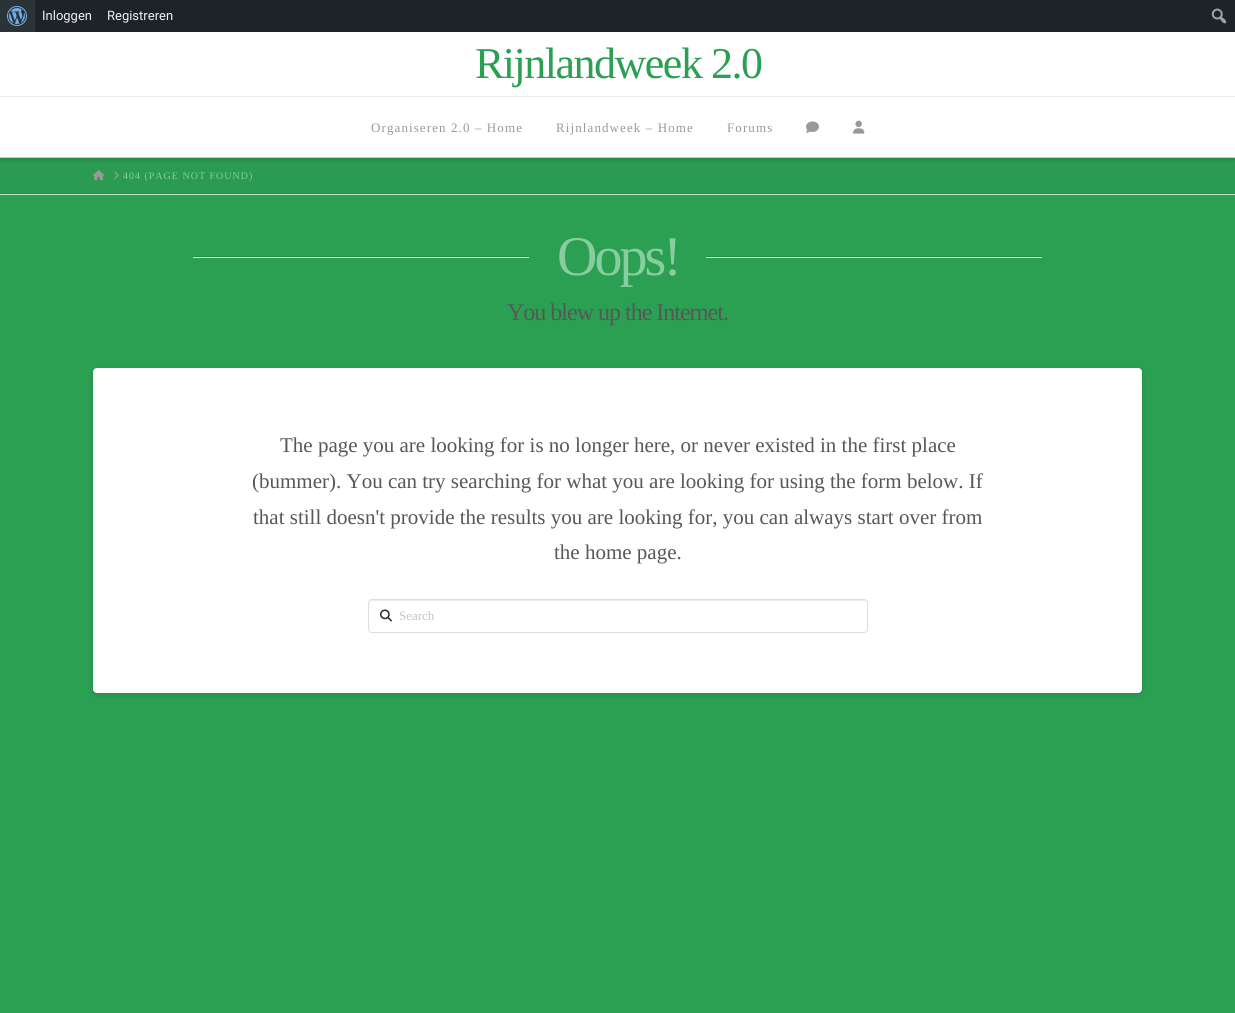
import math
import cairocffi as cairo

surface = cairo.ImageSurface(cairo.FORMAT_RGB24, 1235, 1013)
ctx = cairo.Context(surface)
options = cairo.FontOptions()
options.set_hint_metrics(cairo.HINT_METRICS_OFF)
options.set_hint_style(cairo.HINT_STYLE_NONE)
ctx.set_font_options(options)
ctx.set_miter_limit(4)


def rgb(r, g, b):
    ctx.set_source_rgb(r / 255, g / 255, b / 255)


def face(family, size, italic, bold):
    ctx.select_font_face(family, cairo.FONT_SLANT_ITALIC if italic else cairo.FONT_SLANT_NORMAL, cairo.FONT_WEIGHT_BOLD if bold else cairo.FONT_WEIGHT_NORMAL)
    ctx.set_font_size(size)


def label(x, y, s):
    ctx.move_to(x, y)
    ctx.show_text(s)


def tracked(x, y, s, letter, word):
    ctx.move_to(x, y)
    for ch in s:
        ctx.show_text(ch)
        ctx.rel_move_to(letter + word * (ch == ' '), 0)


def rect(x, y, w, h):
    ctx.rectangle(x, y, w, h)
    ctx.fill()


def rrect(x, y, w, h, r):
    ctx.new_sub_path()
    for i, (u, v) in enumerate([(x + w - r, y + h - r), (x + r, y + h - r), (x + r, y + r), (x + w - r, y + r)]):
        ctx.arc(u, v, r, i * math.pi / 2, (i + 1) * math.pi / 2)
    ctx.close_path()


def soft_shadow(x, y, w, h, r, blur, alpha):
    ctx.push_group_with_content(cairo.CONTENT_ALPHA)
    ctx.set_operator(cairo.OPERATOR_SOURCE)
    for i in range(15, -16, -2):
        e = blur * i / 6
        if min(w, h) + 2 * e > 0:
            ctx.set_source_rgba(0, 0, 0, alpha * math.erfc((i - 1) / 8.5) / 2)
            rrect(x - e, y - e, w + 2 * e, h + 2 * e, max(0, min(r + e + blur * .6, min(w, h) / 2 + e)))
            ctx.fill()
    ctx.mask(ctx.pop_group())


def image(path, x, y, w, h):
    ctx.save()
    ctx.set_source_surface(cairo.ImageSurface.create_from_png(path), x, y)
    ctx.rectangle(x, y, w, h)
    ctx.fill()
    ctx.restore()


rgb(43, 159, 82)
ctx.paint()
rgb(29, 35, 39)
rect(35, 0, 1200, 32)
rgb(44, 51, 56)
rect(0, 0, 35, 32)
image('image0.png', 7, 6, 20, 20)
face('Roboto', 13, 0, 0)
rgb(240, 240, 241)
label(42, 20, 'Inloggen')
label(107, 20, 'Registreren')
image('image1.png', 1211, 8, 16, 16)
rgb(255, 255, 255)
rect(0, 32, 1235, 64)
rgb(242, 242, 242)
rect(0, 96, 1235, 1)
face('Liberation Serif', 44, 0, 0)
rgb(43, 159, 82)
tracked(475, 78, 'Rijnlandweek 2.0', -1.5, 0)
rgb(42, 155, 80)
rect(0, 158, 1235, 35)
rgb(0, 0, 0)
soft_shadow(0, 99, 1235, 61, 0, 2.5, 0.13)
rgb(255, 255, 255)
rect(0, 97, 1235, 60)
rgb(204, 204, 204)
rect(0, 157, 1235, 1)
face('Liberation Serif', 13, 0, 0)
rgb(153, 153, 153)
tracked(371, 132, 'Organiseren 2.0 – Home', 1.1, 0)
tracked(556, 132, 'Rijnlandweek – Home', 1.1, 0)
tracked(727, 132, 'Forums', 1.1, 0)
image('image2.png', 806, 121, 13, 12)
image('image3.png', 853, 120, 12, 14)
rgb(194, 228, 206)
rect(0, 194, 1235, 1)
rgb(38, 140, 72)
rect(0, 193, 1235, 1)
image('image4.png', 93, 170, 12, 11)
image('image5.png', 114, 171, 5, 8)
face('Liberation Serif', 10, 0, 0)
rgb(136, 205, 159)
tracked(123, 179, '404 (PAGE NOT FOUND)', 1, 0)
rgb(212, 235, 220)
rect(193, 257, 336, 1)
rgb(39, 143, 74)
rect(193, 256, 336, 1)
face('Liberation Serif', 56, 0, 0)
rgb(136, 205, 159)
tracked(557, 275, 'Oops!', -3, 0)
rgb(212, 235, 220)
rect(706, 257, 336, 1)
rgb(39, 143, 74)
rect(706, 256, 336, 1)
face('Liberation Serif', 24, 0, 0)
rgb(87, 87, 87)
tracked(507, 320, 'You blew up the Internet.', -1, 0)
rgb(0, 0, 0)
soft_shadow(93, 370, 1049, 325, 4, 2.5, 0.13)
rgb(255, 255, 255)
rrect(93, 368, 1049, 325, 4)
ctx.fill()
face('Liberation Serif', 21, 0, 0)
rgb(87, 87, 87)
label(280, 452, 'The page you are looking for is no longer here, or never existed in the first place')
label(252, 488, '(bummer). You can try searching for what you are looking for using the form below. If')
label(253, 524, 'that still doesn\'t provide the results you are looking for, you can always start over from')
label(554, 559, 'the home page.')
rgb(236, 236, 236)
ctx.new_path()
ctx.move_to(372, 601)
ctx.line_to(864, 601)
ctx.curve_to(866, 601, 867, 602, 867, 604)
ctx.curve_to(867, 602, 866, 600, 864, 600)
ctx.line_to(372, 600)
ctx.curve_to(370, 600, 369, 602, 369, 604)
ctx.curve_to(369, 602, 370, 601, 372, 601)
ctx.close_path()
ctx.fill()
rrect(368.5, 599.5, 499, 33, 3.5)
rgb(221, 221, 221)
ctx.set_line_width(1)
ctx.stroke()
image('image6.png', 380, 609, 12, 13)
face('Liberation Serif', 13, 0, 0)
rgb(197, 197, 197)
label(399, 620, 'Search')
surface.write_to_png('render.png')
